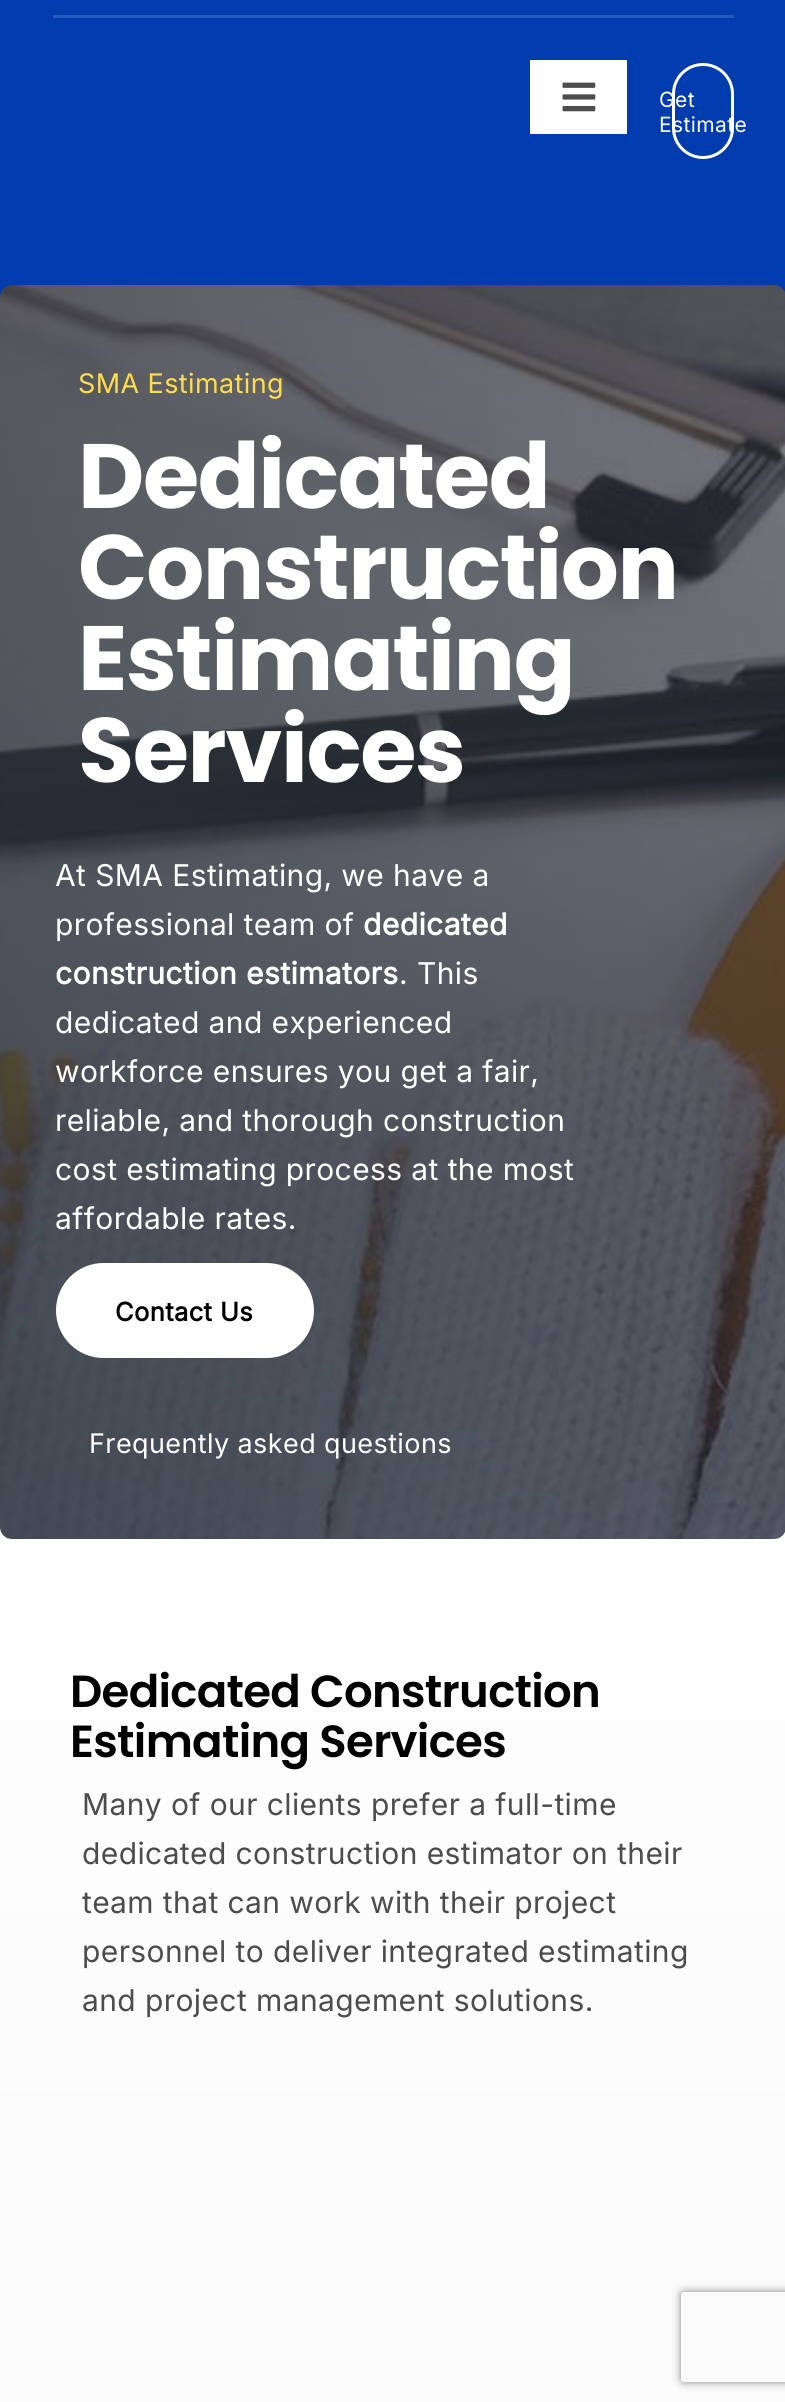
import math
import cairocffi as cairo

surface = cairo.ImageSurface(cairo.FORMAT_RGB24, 785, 2402)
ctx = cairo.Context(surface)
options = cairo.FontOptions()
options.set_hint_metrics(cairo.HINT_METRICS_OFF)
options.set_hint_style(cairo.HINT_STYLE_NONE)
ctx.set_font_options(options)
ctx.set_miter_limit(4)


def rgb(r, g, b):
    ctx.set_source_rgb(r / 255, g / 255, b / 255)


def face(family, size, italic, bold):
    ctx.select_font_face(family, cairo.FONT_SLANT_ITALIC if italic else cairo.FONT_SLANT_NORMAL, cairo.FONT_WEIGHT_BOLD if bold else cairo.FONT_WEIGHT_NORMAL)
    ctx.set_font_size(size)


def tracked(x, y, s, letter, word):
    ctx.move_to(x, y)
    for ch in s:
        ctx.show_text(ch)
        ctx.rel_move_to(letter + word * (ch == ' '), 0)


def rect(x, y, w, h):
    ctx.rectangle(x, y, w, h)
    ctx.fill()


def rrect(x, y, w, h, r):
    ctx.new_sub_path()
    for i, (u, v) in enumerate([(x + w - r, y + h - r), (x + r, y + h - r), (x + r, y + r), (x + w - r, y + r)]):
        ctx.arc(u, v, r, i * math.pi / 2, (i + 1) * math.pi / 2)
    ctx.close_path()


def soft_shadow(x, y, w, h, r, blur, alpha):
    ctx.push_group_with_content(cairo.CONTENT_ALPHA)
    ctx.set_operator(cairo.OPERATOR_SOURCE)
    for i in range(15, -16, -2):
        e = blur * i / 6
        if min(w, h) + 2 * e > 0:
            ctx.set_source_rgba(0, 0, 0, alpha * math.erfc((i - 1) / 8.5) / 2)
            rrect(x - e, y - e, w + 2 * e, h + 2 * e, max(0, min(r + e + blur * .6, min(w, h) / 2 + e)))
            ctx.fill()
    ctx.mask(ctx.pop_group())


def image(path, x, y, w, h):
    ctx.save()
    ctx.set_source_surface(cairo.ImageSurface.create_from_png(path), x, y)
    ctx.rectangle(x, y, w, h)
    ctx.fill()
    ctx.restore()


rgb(1, 60, 174)
ctx.paint()
rgb(39, 89, 186)
rect(53, 15, 681, 3)
rgb(255, 255, 255)
rect(530, 60, 97, 74)
image('image0.png', 562, 82, 34, 30)
rrect(673.5, 64.5, 59, 93, 29.5)
ctx.set_line_width(3)
ctx.stroke()
face('Inter', 21, 0, 0)
tracked(659, 107, 'Get', 0.4, 0)
tracked(659, 132, 'Estimate', 0.4, 0)
gradient = cairo.LinearGradient(393, 1445, 393, 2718)
gradient.add_color_stop_rgba(0, 1, 1, 1, 1)
gradient.add_color_stop_rgba(1, 0.973, 0.973, 0.973, 1)
ctx.set_source(gradient)
rect(0, 1527, 785, 875)
image('image1.png', 0, 285, 785, 1254)
face('Inter', 27, 0, 0)
rgb(255, 220, 75)
tracked(78, 393, 'SMA Estimating', 0.4, 0)
face('Poppins', 91.25, 0, 1)
rgb(255, 255, 255)
tracked(78, 508, 'Dedicated', -1.4, 0)
tracked(78, 599, 'Construction', -1.4, 0)
tracked(78, 690, 'Estimating', -1.4, 0)
tracked(78, 782, 'Services', -1.4, 0)
face('Inter', 30, 0, 0)
tracked(55, 886, 'At SMA Estimating, we have a', 0.4, 0)
tracked(55, 935, 'professional team of', 0.4, 0)
face('Inter', 30, 0, 1)
tracked(363, 935, 'dedicated', 0.4, 0)
tracked(55, 984, 'construction estimators', 0.4, 0)
face('Inter', 30, 0, 0)
tracked(399, 984, '. This', 0.4, 0)
tracked(55, 1033, 'dedicated and experienced', 0.4, 0)
tracked(55, 1082, 'workforce ensures you get a fair,', 0.4, 0)
tracked(55, 1131, 'reliable, and thorough construction', 0.4, 0)
tracked(55, 1180, 'cost estimating process at the most', 0.4, 0)
tracked(55, 1229, 'affordable rates.', 0.4, 0)
rrect(56, 1263, 258, 95, 47.5)
ctx.fill()
face('Inter', 25.5, 0, 1)
rgb(0, 0, 0)
tracked(115, 1321, 'Contact Us', 0.4, 0)
face('Inter', 27, 0, 0)
rgb(255, 255, 255)
tracked(89, 1453, 'Frequently asked questions', 0.4, 0)
face('Poppins SemiBold', 45, 0, 0)
rgb(0, 0, 0)
tracked(70, 1707, 'Dedicated Construction', -0.7, 0)
tracked(70, 1757, 'Estimating Services', -0.7, 0)
face('Inter', 30, 0, 0)
rgb(76, 76, 76)
tracked(82, 1815, 'Many of our clients prefer a full-time', 0.4, 0)
tracked(82, 1864, 'dedicated construction estimator on their', 0.4, 0)
tracked(82, 1913, 'team that can work with their project', 0.4, 0)
tracked(82, 1962, 'personnel to deliver integrated estimating', 0.4, 0)
tracked(82, 2011, 'and project management solutions.', 0.4, 0)
ctx.save()
ctx.set_fill_rule(cairo.FILL_RULE_EVEN_ODD)
ctx.new_path()
ctx.move_to(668, 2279)
ctx.line_to(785, 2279)
ctx.line_to(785, 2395)
ctx.line_to(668, 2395)
ctx.close_path()
ctx.move_to(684, 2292)
ctx.line_to(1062, 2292)
ctx.curve_to(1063.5, 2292, 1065, 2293.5, 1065, 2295)
ctx.line_to(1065, 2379)
ctx.curve_to(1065, 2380.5, 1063.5, 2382, 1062, 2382)
ctx.line_to(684, 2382)
ctx.curve_to(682.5, 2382, 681, 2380.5, 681, 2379)
ctx.line_to(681, 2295)
ctx.curve_to(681, 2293.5, 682.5, 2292, 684, 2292)
ctx.close_path()
ctx.clip()
rgb(128, 128, 128)
soft_shadow(681, 2292, 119, 90, 3, 4, 1)
ctx.restore()
surface.write_to_png('render.png')
